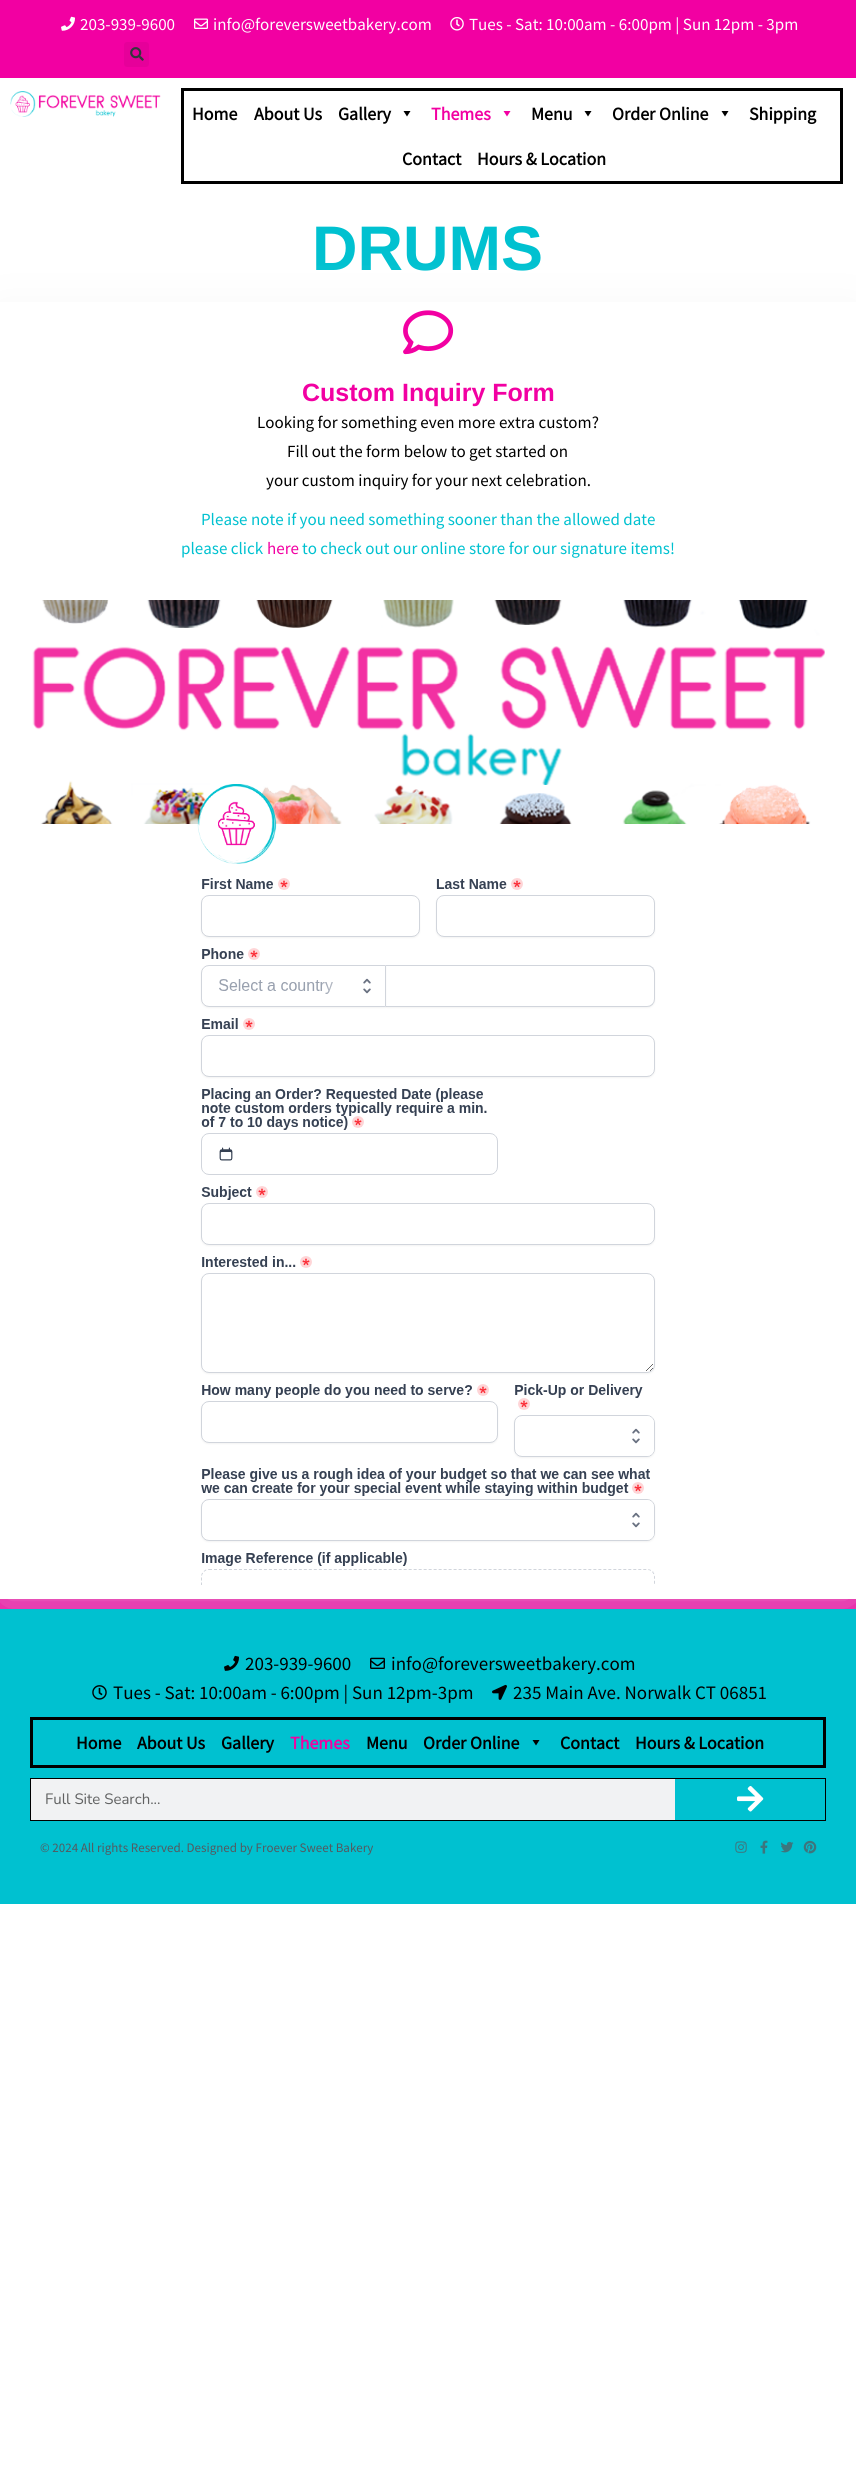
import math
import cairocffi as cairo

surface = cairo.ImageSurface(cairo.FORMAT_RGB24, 856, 2474)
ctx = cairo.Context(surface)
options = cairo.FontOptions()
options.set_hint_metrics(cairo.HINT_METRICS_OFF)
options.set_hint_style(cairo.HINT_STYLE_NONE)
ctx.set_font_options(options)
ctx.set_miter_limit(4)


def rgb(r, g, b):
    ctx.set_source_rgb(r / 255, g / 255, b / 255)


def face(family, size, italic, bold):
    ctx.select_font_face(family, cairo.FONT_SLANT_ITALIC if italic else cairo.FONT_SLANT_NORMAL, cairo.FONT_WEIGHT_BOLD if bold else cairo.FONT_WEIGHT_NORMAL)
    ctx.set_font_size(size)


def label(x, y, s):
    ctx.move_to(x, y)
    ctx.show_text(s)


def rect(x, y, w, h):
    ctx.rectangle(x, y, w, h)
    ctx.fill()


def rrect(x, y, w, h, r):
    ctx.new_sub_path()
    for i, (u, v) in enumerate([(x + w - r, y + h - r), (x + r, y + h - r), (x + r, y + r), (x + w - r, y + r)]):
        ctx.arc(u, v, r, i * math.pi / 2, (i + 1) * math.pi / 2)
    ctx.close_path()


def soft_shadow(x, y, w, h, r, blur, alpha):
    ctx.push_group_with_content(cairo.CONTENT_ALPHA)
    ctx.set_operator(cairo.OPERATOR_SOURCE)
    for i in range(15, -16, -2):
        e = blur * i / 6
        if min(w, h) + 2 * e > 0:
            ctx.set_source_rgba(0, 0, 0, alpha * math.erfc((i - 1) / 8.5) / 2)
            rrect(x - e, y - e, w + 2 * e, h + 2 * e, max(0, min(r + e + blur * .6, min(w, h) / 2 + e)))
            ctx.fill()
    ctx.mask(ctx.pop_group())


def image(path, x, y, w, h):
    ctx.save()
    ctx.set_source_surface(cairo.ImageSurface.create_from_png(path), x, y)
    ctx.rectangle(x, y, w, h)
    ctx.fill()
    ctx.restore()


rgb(255, 255, 255)
ctx.paint()
rgb(242, 0, 162)
rect(0, 0, 856, 78)
image('image0.png', 61, 16, 14, 15)
face('Source Sans Pro', 17, 0, 0)
rgb(255, 255, 255)
label(80, 30, '203-939-9600')
image('image1.png', 194, 18, 14, 11)
label(213, 30, 'info@foreversweetbakery.com')
image('image2.png', 450, 17, 14, 14)
label(469, 30, 'Tues - Sat: 10:00am - 6:00pm | Sun 12pm - 3pm')
rgb(230, 0, 154)
rrect(124, 42, 25, 25, 3)
ctx.fill()
image('image3.png', 130, 47, 14, 14)
image('image4.png', 10, 91, 151, 26)
ctx.rectangle(182.5, 89.5, 659, 93)
rgb(0, 0, 0)
ctx.set_line_width(3)
ctx.stroke()
face('Source Sans Pro', 18, 0, 1)
label(192, 120, 'Home')
label(254, 120, 'About Us')
label(338, 120, 'Gallery')
ctx.new_path()
ctx.move_to(410.5, 111)
ctx.line_to(407, 116.5)
ctx.line_to(403.5, 111)
ctx.close_path()
ctx.fill()
rgb(242, 0, 162)
label(431, 120, 'Themes')
ctx.new_path()
ctx.move_to(510.5, 111)
ctx.line_to(507, 116.5)
ctx.line_to(503.5, 111)
ctx.close_path()
ctx.fill()
rgb(0, 0, 0)
label(531, 120, 'Menu')
ctx.new_path()
ctx.move_to(591.5, 111)
ctx.line_to(588, 116.5)
ctx.line_to(584.5, 111)
ctx.close_path()
ctx.fill()
label(612, 120, 'Order Online')
ctx.new_path()
ctx.move_to(728.5, 111)
ctx.line_to(725, 116.5)
ctx.line_to(721.5, 111)
ctx.close_path()
ctx.fill()
label(749, 120, 'Shipping')
label(402, 165, 'Contact')
label(477, 165, 'Hours & Location')
face('Liberation Sans', 63, 0, 1)
rgb(0, 193, 208)
label(312, 270, 'DRUMS')
gradient = cairo.LinearGradient(428, 302, 428, 1609)
gradient.add_color_stop_rgba(0, 0, 0.898, 0.969, 1)
gradient.add_color_stop_rgba(1, 0.906, 0.027, 0.616, 1)
ctx.set_source(gradient)
rect(0, 1599, 856, 10)
rgb(237, 237, 237)
soft_shadow(0, 308, 856, 1297, 0, 23, 0.5)
rgb(255, 255, 255)
rect(0, 302, 856, 1297)
image('image5.png', 403, 310, 51, 45)
face('Liberation Sans', 25, 0, 1)
rgb(242, 0, 162)
label(302, 401, 'Custom Inquiry Form')
face('Source Sans Pro', 17, 0, 0)
rgb(0, 0, 0)
label(257, 428, 'Looking for something even more extra custom?')
label(287, 457, 'Fill out the form below to get started on')
label(266, 486, 'your custom inquiry for your next celebration.')
rgb(0, 193, 208)
label(201, 525, 'Please note if you need something sooner than the allowed date')
label(181, 554, 'please click')
rgb(242, 0, 162)
label(267, 554, 'here')
rgb(0, 193, 208)
label(302, 554, 'to check out our online store for our signature items!')
image('image6.png', 32, 600, 793, 985)
rect(0, 1609, 856, 295)
image('image7.png', 224, 1655, 15, 16)
face('Source Sans Pro', 19, 0, 0)
rgb(0, 0, 0)
label(245, 1670, '203-939-9600')
image('image8.png', 370, 1657, 15, 12)
label(391, 1670, 'info@foreversweetbakery.com')
image('image9.png', 92, 1685, 15, 15)
label(113, 1699, 'Tues - Sat: 10:00am - 6:00pm | Sun 12pm-3pm')
image('image10.png', 492, 1684, 15, 16)
label(513, 1699, '235 Main Ave. Norwalk CT 06851')
ctx.rectangle(31.5, 1718.5, 793, 48)
ctx.stroke()
face('Source Sans Pro', 18, 0, 1)
label(76, 1749, 'Home')
label(137, 1749, 'About Us')
label(221, 1749, 'Gallery')
rgb(242, 0, 162)
label(290, 1749, 'Themes')
rgb(0, 0, 0)
label(366, 1749, 'Menu')
label(423, 1749, 'Order Online')
ctx.new_path()
ctx.move_to(539.5, 1740)
ctx.line_to(536, 1745.5)
ctx.line_to(532.5, 1740)
ctx.close_path()
ctx.fill()
label(560, 1749, 'Contact')
label(635, 1749, 'Hours & Location')
rgb(241, 242, 243)
rect(31, 1779, 644, 41)
ctx.rectangle(30.5, 1778.5, 795, 42)
rgb(0, 0, 0)
ctx.set_line_width(1)
ctx.stroke()
face('Nunito', 15, 0, 0)
rgb(96, 97, 97)
label(45, 1804, 'Full Site Search...')
image('image11.png', 737, 1786, 27, 26)
face('Source Sans Pro', 13, 0, 0)
rgb(84, 89, 95)
label(40, 1852, '© 2024 All rights Reserved. Designed by Froever Sweet Bakery')
image('image12.png', 735, 1841, 12, 12)
image('image13.png', 760, 1840, 8, 14)
image('image14.png', 780, 1841, 14, 12)
image('image15.png', 803, 1840, 14, 14)
surface.write_to_png('render.png')
